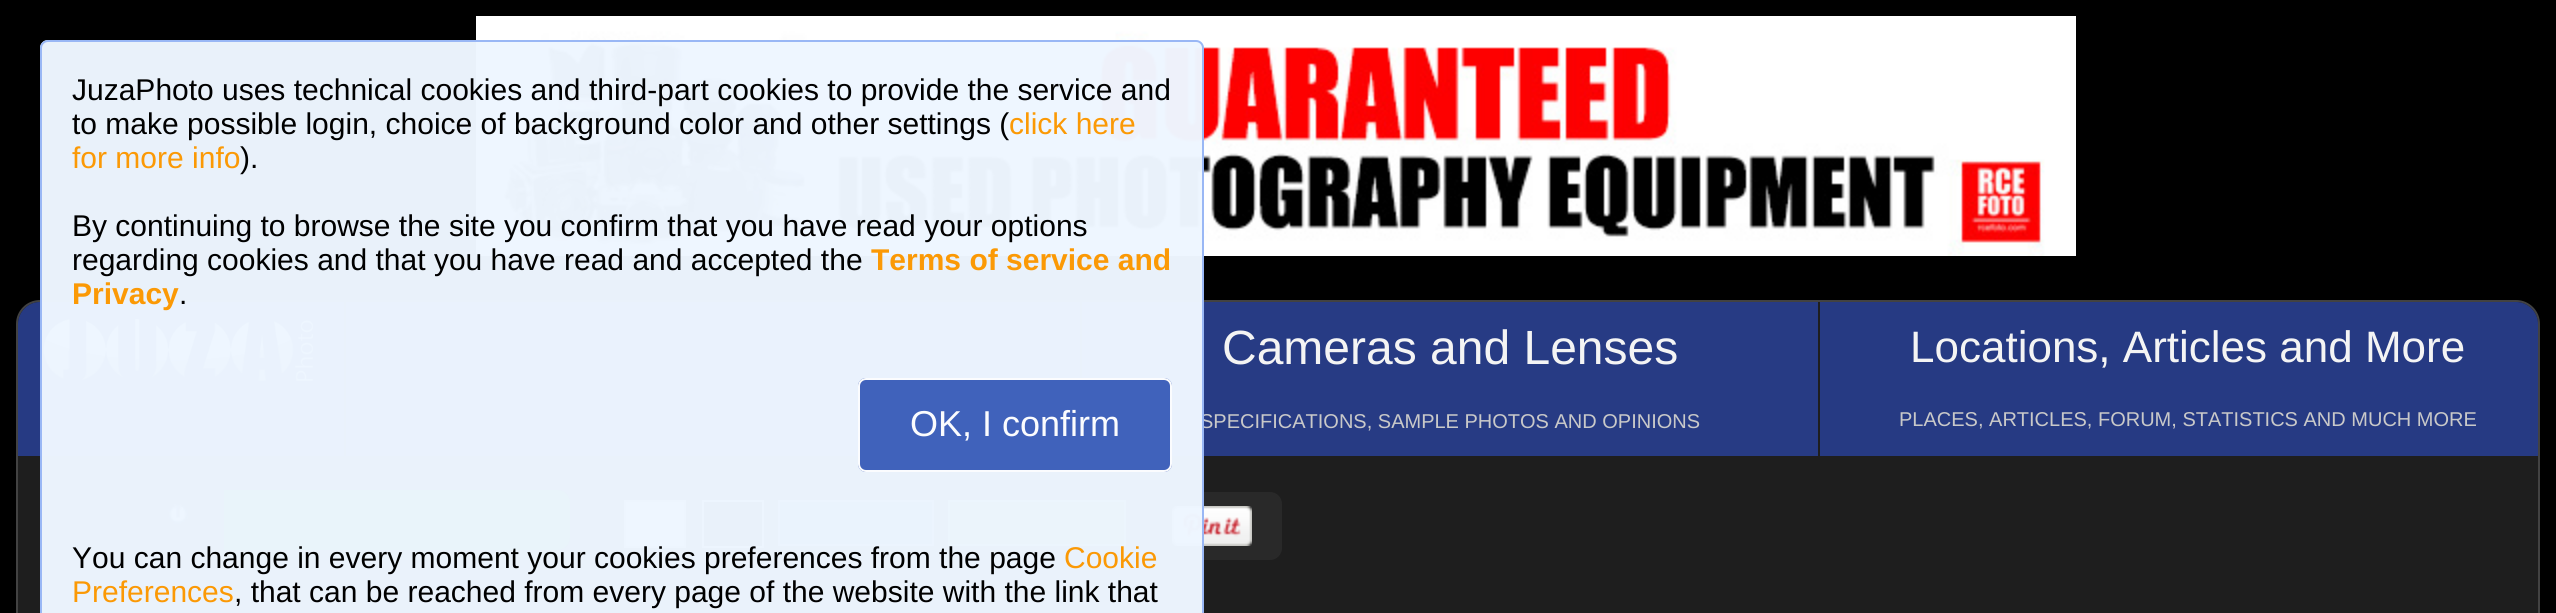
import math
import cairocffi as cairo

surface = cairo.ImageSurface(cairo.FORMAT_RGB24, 2556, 613)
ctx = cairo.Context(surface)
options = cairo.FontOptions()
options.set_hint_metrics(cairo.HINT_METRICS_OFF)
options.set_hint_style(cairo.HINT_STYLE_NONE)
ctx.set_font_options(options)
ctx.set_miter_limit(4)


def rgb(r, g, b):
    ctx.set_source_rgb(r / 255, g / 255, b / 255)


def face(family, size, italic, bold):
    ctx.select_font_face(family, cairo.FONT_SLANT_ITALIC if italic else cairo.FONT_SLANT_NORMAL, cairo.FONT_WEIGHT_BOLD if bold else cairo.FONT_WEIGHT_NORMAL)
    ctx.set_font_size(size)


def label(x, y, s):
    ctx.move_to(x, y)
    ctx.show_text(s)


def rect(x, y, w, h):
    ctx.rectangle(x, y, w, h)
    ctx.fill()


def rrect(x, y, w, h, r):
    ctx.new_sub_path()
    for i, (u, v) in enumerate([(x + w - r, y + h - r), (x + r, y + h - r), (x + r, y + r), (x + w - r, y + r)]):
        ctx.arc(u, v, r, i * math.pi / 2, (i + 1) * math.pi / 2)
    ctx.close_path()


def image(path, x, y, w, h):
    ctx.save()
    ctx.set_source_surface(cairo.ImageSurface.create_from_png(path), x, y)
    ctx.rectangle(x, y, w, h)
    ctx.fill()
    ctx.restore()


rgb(0, 0, 0)
ctx.paint()
image('image0.png', 476, 16, 1600, 240)
rgb(30, 30, 30)
rrect(17, 301, 2522, 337, 23)
ctx.fill_preserve()
rgb(66, 66, 66)
ctx.stroke()
ctx.set_source_rgba(0.153, 0.235, 0.537, 0.95)
ctx.new_path()
ctx.move_to(40, 302)
ctx.line_to(344, 302)
ctx.line_to(344, 456)
ctx.line_to(18, 456)
ctx.line_to(18, 324)
ctx.curve_to(18, 312, 28, 302, 40, 302)
ctx.close_path()
ctx.fill()
image('image1.png', 43, 319, 270, 62)
rgb(39, 59, 132)
rect(346, 302, 734, 154)
rect(1082, 302, 736, 154)
face('Liberation Sans', 20, 0, 0)
rgb(201, 201, 201)
label(1200, 428, 'SPECIFICATIONS, SAMPLE PHOTOS AND OPINIONS')
rgb(41, 41, 41)
ctx.new_path()
ctx.move_to(58, 490)
ctx.line_to(222, 490)
ctx.line_to(222, 550)
ctx.line_to(58, 550)
ctx.curve_to(51.5, 550, 46, 544.5, 46, 538)
ctx.line_to(46, 502)
ctx.curve_to(46, 495.5, 51.5, 490, 58, 490)
ctx.close_path()
ctx.fill()
image('image2.png', 167, 503, 22, 22)
rgb(0, 128, 0)
ctx.new_path()
ctx.move_to(224, 490)
ctx.line_to(558, 490)
ctx.curve_to(564.5, 490, 570, 495.5, 570, 502)
ctx.line_to(570, 538)
ctx.curve_to(570, 544.5, 564.5, 550, 558, 550)
ctx.line_to(224, 550)
ctx.close_path()
ctx.fill()
rgb(41, 41, 41)
rrect(596, 492, 686, 68, 12)
ctx.fill()
rgb(234, 234, 234)
ctx.rectangle(625, 501, 60, 46)
ctx.fill_preserve()
rgb(187, 187, 187)
ctx.stroke()
rgb(4, 4, 4)
ctx.rectangle(703, 501, 60, 46)
ctx.fill_preserve()
rgb(187, 187, 187)
ctx.stroke()
rgb(129, 150, 211)
rect(778, 500, 156, 2)
rect(778, 544, 42, 2)
rect(778, 500, 2, 46)
rgb(54, 80, 157)
rect(780, 502, 152, 42)
rgb(129, 150, 211)
rect(932, 500, 2, 46)
rgb(86, 144, 75)
ctx.rectangle(949, 501, 176, 44)
ctx.fill_preserve()
rgb(170, 204, 163)
ctx.stroke()
rgb(129, 150, 211)
rect(820, 544, 114, 2)
image('image3.png', 1172, 506, 80, 40)
ctx.set_source_rgba(0.929, 0.961, 1, 0.98)
rrect(40, 40, 1164, 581, 8)
ctx.fill()
rrect(41, 41, 1162, 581, 7)
ctx.set_source_rgba(0.592, 0.71, 0.957, 0.98)
ctx.stroke()
face('Liberation Sans', 30, 0, 0)
rgb(0, 0, 0)
label(72, 100, 'JuzaPhoto')
label(222, 100, 'uses technical cookies and third-part cookies to provide the service and')
label(72, 134, 'to make possible login, choice of background color and other settings (')
rgb(251, 153, 5)
label(1009, 134, 'click here')
label(72, 168, 'for more info')
rgb(0, 0, 0)
label(240, 168, ').')
label(72, 236, 'By continuing to browse the site you confirm that you have read your options')
label(72, 270, 'regarding cookies and that you have read and accepted the')
face('Liberation Sans', 30, 0, 1)
rgb(251, 153, 5)
label(871, 270, 'Terms of service and')
label(72, 304, 'Privacy')
face('Liberation Sans', 30, 0, 0)
rgb(0, 0, 0)
label(179, 304, '.')
ctx.set_source_rgba(0.239, 0.373, 0.729, 0.98)
rrect(858, 378, 314, 94, 8)
ctx.fill()
rrect(859, 379, 312, 92, 7)
ctx.set_source_rgba(1, 1, 1, 0.98)
ctx.stroke()
face('Liberation Sans', 36, 0, 0)
rgb(251, 252, 254)
label(910, 436, 'OK, I confirm')
face('Liberation Sans', 30, 0, 0)
rgb(0, 0, 0)
label(72, 568, 'You can change in every moment your cookies preferences from the page')
rgb(251, 153, 5)
label(1064, 568, 'Cookie')
label(72, 602, 'Preferences')
rgb(0, 0, 0)
label(234, 602, ', that can be reached from every page of the website with the link that')
face('Liberation Sans', 48, 0, 0)
rgb(244, 244, 244)
label(1222, 364, 'Cameras and Lenses')
ctx.set_source_rgba(0.153, 0.235, 0.537, 0.95)
ctx.new_path()
ctx.move_to(1820, 302)
ctx.line_to(2516, 302)
ctx.curve_to(2528, 302, 2538, 312, 2538, 324)
ctx.line_to(2538, 456)
ctx.line_to(1820, 456)
ctx.close_path()
ctx.fill()
face('Liberation Sans', 44, 0, 0)
rgb(244, 244, 244)
label(1910, 362, 'Locations, Articles and More')
face('Liberation Sans', 20, 0, 0)
rgb(201, 201, 201)
label(1899, 426, 'PLACES, ARTICLES, FORUM, STATISTICS AND MUCH MORE')
surface.write_to_png('render.png')
